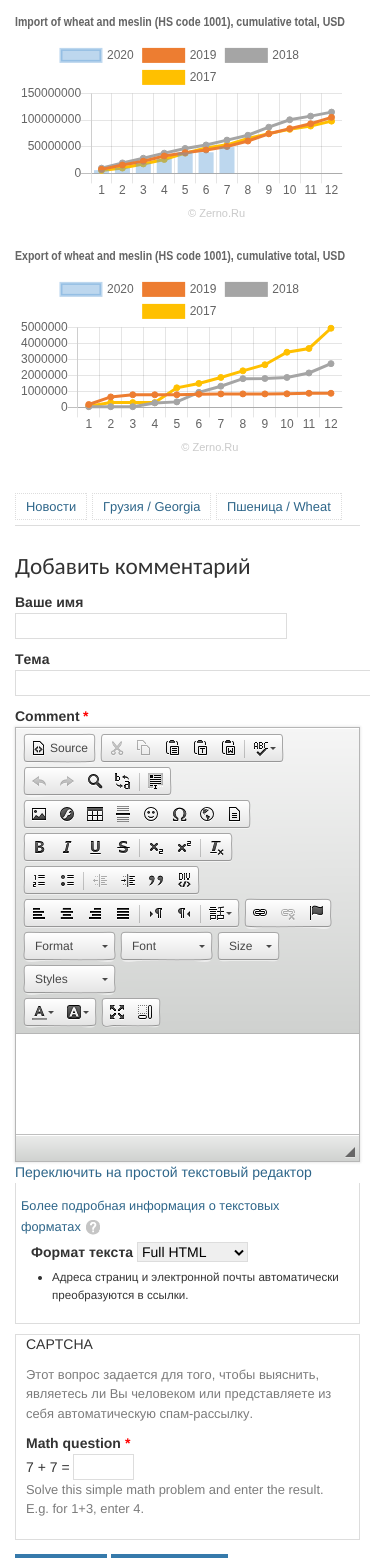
import math
import cairocffi as cairo

surface = cairo.ImageSurface(cairo.FORMAT_RGB24, 370, 1558)
ctx = cairo.Context(surface)
options = cairo.FontOptions()
options.set_hint_metrics(cairo.HINT_METRICS_OFF)
options.set_hint_style(cairo.HINT_STYLE_NONE)
ctx.set_font_options(options)
ctx.set_miter_limit(4)


def rgb(r, g, b):
    ctx.set_source_rgb(r / 255, g / 255, b / 255)


def face(family, size, italic, bold):
    ctx.select_font_face(family, cairo.FONT_SLANT_ITALIC if italic else cairo.FONT_SLANT_NORMAL, cairo.FONT_WEIGHT_BOLD if bold else cairo.FONT_WEIGHT_NORMAL)
    ctx.set_font_size(size)


def label(x, y, s):
    ctx.move_to(x, y)
    ctx.show_text(s)


def rect(x, y, w, h):
    ctx.rectangle(x, y, w, h)
    ctx.fill()


def rrect(x, y, w, h, r):
    ctx.new_sub_path()
    for i, (u, v) in enumerate([(x + w - r, y + h - r), (x + r, y + h - r), (x + r, y + r), (x + w - r, y + r)]):
        ctx.arc(u, v, r, i * math.pi / 2, (i + 1) * math.pi / 2)
    ctx.close_path()


def soft_shadow(x, y, w, h, r, blur, alpha):
    ctx.push_group_with_content(cairo.CONTENT_ALPHA)
    ctx.set_operator(cairo.OPERATOR_SOURCE)
    for i in range(15, -16, -2):
        e = blur * i / 6
        if min(w, h) + 2 * e > 0:
            ctx.set_source_rgba(0, 0, 0, alpha * math.erfc((i - 1) / 8.5) / 2)
            rrect(x - e, y - e, w + 2 * e, h + 2 * e, max(0, min(r + e + blur * .6, min(w, h) / 2 + e)))
            ctx.fill()
    ctx.mask(ctx.pop_group())


def image(path, x, y, w, h):
    ctx.save()
    ctx.set_source_surface(cairo.ImageSurface.create_from_png(path), x, y)
    ctx.rectangle(x, y, w, h)
    ctx.fill()
    ctx.restore()


rgb(255, 255, 255)
ctx.paint()
image('image0.png', 15, 17, 330, 200)
image('image1.png', 15, 251, 330, 200)
ctx.new_path()
ctx.move_to(15, 493.5)
ctx.line_to(87, 493.5)
rgb(221, 221, 221)
ctx.set_line_width(1)
ctx.set_dash([1, 1])
ctx.stroke()
ctx.new_path()
ctx.move_to(86.5, 493)
ctx.line_to(86.5, 520)
ctx.stroke()
ctx.new_path()
ctx.move_to(15, 519.5)
ctx.line_to(87, 519.5)
ctx.stroke()
ctx.new_path()
ctx.move_to(15.5, 493)
ctx.line_to(15.5, 520)
ctx.stroke()
face('Liberation Sans', 12.9, 0, 0)
rgb(45, 101, 137)
label(26, 511, 'Новости')
ctx.new_path()
ctx.move_to(92, 493.5)
ctx.line_to(211, 493.5)
rgb(221, 221, 221)
ctx.stroke()
ctx.new_path()
ctx.move_to(210.5, 493)
ctx.line_to(210.5, 520)
ctx.stroke()
ctx.new_path()
ctx.move_to(92, 519.5)
ctx.line_to(211, 519.5)
ctx.stroke()
ctx.new_path()
ctx.move_to(92.5, 493)
ctx.line_to(92.5, 520)
ctx.stroke()
rgb(45, 101, 137)
label(103, 511, 'Грузия / Georgia')
ctx.new_path()
ctx.move_to(216, 493.5)
ctx.line_to(342, 493.5)
rgb(221, 221, 221)
ctx.stroke()
ctx.new_path()
ctx.move_to(341.5, 493)
ctx.line_to(341.5, 520)
ctx.stroke()
ctx.new_path()
ctx.move_to(216, 519.5)
ctx.line_to(342, 519.5)
ctx.stroke()
ctx.new_path()
ctx.move_to(216.5, 493)
ctx.line_to(216.5, 520)
ctx.stroke()
rgb(45, 101, 137)
label(227, 511, 'Пшеница / Wheat')
rgb(221, 221, 221)
rect(15, 525, 345, 1)
face('Carlito', 23.25, 0, 0)
rgb(51, 51, 51)
label(15, 574, 'Добавить комментарий')
face('Liberation Sans', 14, 0, 1)
label(15, 607, 'Ваше имя')
ctx.rectangle(15.5, 613.5, 271, 25)
rgb(221, 221, 221)
ctx.set_dash([])
ctx.stroke()
rgb(51, 51, 51)
label(15, 664, 'Тема')
ctx.rectangle(15.5, 670.5, 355, 25)
rgb(221, 221, 221)
ctx.stroke()
ctx.save()
ctx.set_fill_rule(cairo.FILL_RULE_EVEN_ODD)
ctx.new_path()
ctx.move_to(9, 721)
ctx.line_to(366, 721)
ctx.line_to(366, 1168)
ctx.line_to(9, 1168)
ctx.close_path()
ctx.move_to(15, 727)
ctx.line_to(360, 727)
ctx.line_to(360, 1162)
ctx.line_to(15, 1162)
ctx.close_path()
ctx.clip()
rgb(0, 0, 0)
soft_shadow(15, 727, 345, 435, 0, 1.5, 0.15)
ctx.restore()
rgb(51, 51, 51)
label(15, 721, 'Comment')
rgb(255, 0, 0)
label(83, 721, '*')
ctx.rectangle(15.5, 727.5, 344, 434)
rgb(182, 182, 182)
ctx.stroke()
gradient = cairo.LinearGradient(187, 728, 188, 1033)
gradient.add_color_stop_rgba(0, 0.961, 0.961, 0.961, 1)
gradient.add_color_stop_rgba(1, 0.812, 0.82, 0.812, 1)
ctx.set_source(gradient)
rect(16, 729, 343, 304)
rgb(182, 182, 182)
rect(16, 1033, 343, 1)
rgb(248, 248, 248)
ctx.new_path()
ctx.move_to(24, 759)
ctx.curve_to(24, 766, 34, 763, 38, 763)
ctx.line_to(81, 763)
ctx.curve_to(85, 763, 95, 766, 95, 759)
ctx.curve_to(95, 761, 94, 762, 92, 762)
ctx.line_to(27, 762)
ctx.curve_to(25, 762, 24, 761, 24, 759)
ctx.close_path()
ctx.fill()
ctx.save()
rrect(24, 734, 71, 28, 3)
ctx.clip()
gradient = cairo.LinearGradient(60, 735, 60, 761)
gradient.add_color_stop_rgba(0, 1, 1, 1, 1)
gradient.add_color_stop_rgba(1, 0.894, 0.894, 0.894, 1)
ctx.set_source(gradient)
rect(24, 735, 71, 26)
gradient = cairo.LinearGradient(60, 761, 60, 787)
gradient.add_color_stop_rgba(0, 1, 1, 1, 1)
gradient.add_color_stop_rgba(1, 0.894, 0.894, 0.894, 1)
ctx.set_source(gradient)
rect(24, 761, 71, 1)
ctx.restore()
ctx.new_path()
ctx.move_to(94, 761)
ctx.line_to(93.5, 761)
ctx.curve_to(91.5, 762.5, 44, 761.5, 38, 761.5)
ctx.line_to(27, 761.5)
ctx.line_to(25, 761)
rgb(151, 151, 151)
ctx.stroke()
ctx.new_path()
ctx.move_to(25, 761)
ctx.curve_to(23.5, 759, 24.5, 750.5, 24.5, 748)
ctx.curve_to(24.5, 732, 21.5, 734.5, 38, 734.5)
ctx.line_to(81, 734.5)
ctx.curve_to(97.5, 734.5, 94.5, 732, 94.5, 748)
ctx.curve_to(94.5, 750.5, 95.5, 759, 94, 761)
rgb(166, 166, 166)
ctx.stroke()
image('image2.png', 33, 741, 11, 15)
face('Liberation Sans', 12, 0, 0)
rgb(71, 71, 71)
label(50, 752, 'Source')
rgb(248, 248, 248)
ctx.new_path()
ctx.move_to(101, 759)
ctx.line_to(101, 760)
ctx.curve_to(101, 762, 102, 763, 104, 763)
ctx.line_to(280, 763)
ctx.curve_to(282, 763, 283, 762, 283, 760)
ctx.line_to(283, 759)
ctx.curve_to(283, 761, 282, 762, 280, 762)
ctx.line_to(104, 762)
ctx.curve_to(102, 762, 101, 761, 101, 759)
ctx.close_path()
ctx.fill()
ctx.save()
rrect(101, 734, 182, 28, 3)
ctx.clip()
gradient = cairo.LinearGradient(192, 735, 192, 761)
gradient.add_color_stop_rgba(0, 1, 1, 1, 1)
gradient.add_color_stop_rgba(1, 0.894, 0.894, 0.894, 1)
ctx.set_source(gradient)
rect(101, 735, 182, 26)
ctx.restore()
gradient = cairo.LinearGradient(192, 735, 192, 761)
gradient.add_color_stop_rgba(0, 0.8, 0.8, 0.8, 1)
gradient.add_color_stop_rgba(1, 0.714, 0.714, 0.714, 1)
ctx.set_source(gradient)
rect(244, 740, 1, 18)
ctx.new_path()
ctx.move_to(282, 761)
ctx.line_to(280, 761.5)
ctx.line_to(104, 761.5)
ctx.line_to(102, 761)
rgb(151, 151, 151)
ctx.stroke()
ctx.new_path()
ctx.move_to(102, 761)
ctx.curve_to(100.5, 759, 101.5, 750.5, 101.5, 748)
ctx.line_to(101.5, 740.5)
ctx.curve_to(101.5, 739, 101, 734.5, 104, 734.5)
ctx.line_to(280, 734.5)
ctx.curve_to(283, 734.5, 282.5, 739, 282.5, 740.5)
ctx.line_to(282.5, 748)
ctx.curve_to(282.5, 750.5, 283.5, 759, 282, 761)
rgb(166, 166, 166)
ctx.stroke()
image('image3.png', 111, 741, 13, 15)
image('image4.png', 137, 740, 13, 16)
image('image5.png', 166, 740, 13, 16)
image('image6.png', 194, 740, 13, 16)
image('image7.png', 222, 740, 13, 16)
image('image8.png', 254, 742, 14, 14)
rgb(71, 71, 71)
ctx.new_path()
ctx.move_to(270, 747)
ctx.line_to(276, 747)
ctx.line_to(273, 750)
ctx.close_path()
ctx.fill()
rgb(246, 246, 246)
ctx.new_path()
ctx.move_to(24, 792)
ctx.curve_to(24, 801, 43, 796, 50, 796)
ctx.line_to(169, 796)
ctx.curve_to(171, 795, 171, 794, 171, 792)
ctx.curve_to(171, 794, 170, 795, 168, 795)
ctx.line_to(27, 795)
ctx.curve_to(25, 795, 24, 794, 24, 792)
ctx.close_path()
ctx.fill()
ctx.save()
rrect(24, 767, 147, 28, 3)
ctx.clip()
gradient = cairo.LinearGradient(98, 768, 98, 794)
gradient.add_color_stop_rgba(0, 1, 1, 1, 1)
gradient.add_color_stop_rgba(1, 0.894, 0.894, 0.894, 1)
ctx.set_source(gradient)
rect(24, 768, 147, 26)
ctx.restore()
gradient = cairo.LinearGradient(98, 768, 98, 794)
gradient.add_color_stop_rgba(0, 0.8, 0.8, 0.8, 1)
gradient.add_color_stop_rgba(1, 0.714, 0.714, 0.714, 1)
ctx.set_source(gradient)
rect(139, 773, 1, 18)
ctx.new_path()
ctx.move_to(170, 794)
ctx.line_to(168, 794.5)
ctx.line_to(27, 794.5)
ctx.line_to(25, 794)
rgb(151, 151, 151)
ctx.stroke()
ctx.new_path()
ctx.move_to(25, 794)
ctx.curve_to(23.5, 792, 24.5, 783.5, 24.5, 781)
ctx.line_to(24.5, 773.5)
ctx.curve_to(24.5, 772, 24, 767.5, 27, 767.5)
ctx.line_to(168, 767.5)
ctx.curve_to(171, 767.5, 170.5, 772, 170.5, 773.5)
ctx.line_to(170.5, 781)
ctx.curve_to(170.5, 783.5, 171.5, 792, 170, 794)
rgb(166, 166, 166)
ctx.stroke()
image('image9.png', 32, 776, 14, 10)
image('image10.png', 60, 776, 14, 10)
image('image11.png', 88, 774, 15, 15)
image('image12.png', 115, 773, 15, 16)
image('image13.png', 148, 773, 15, 16)
rgb(244, 244, 244)
ctx.new_path()
ctx.move_to(24, 825)
ctx.line_to(24, 826)
ctx.curve_to(24, 828, 25, 829, 27, 829)
ctx.line_to(247, 829)
ctx.curve_to(249, 829, 250, 828, 250, 826)
ctx.line_to(250, 825)
ctx.curve_to(250, 827, 249, 828, 247, 828)
ctx.line_to(27, 828)
ctx.curve_to(25, 828, 24, 827, 24, 825)
ctx.close_path()
ctx.fill()
ctx.save()
rrect(24, 800, 226, 28, 3)
ctx.clip()
gradient = cairo.LinearGradient(137, 801, 137, 827)
gradient.add_color_stop_rgba(0, 1, 1, 1, 1)
gradient.add_color_stop_rgba(1, 0.894, 0.894, 0.894, 1)
ctx.set_source(gradient)
rect(24, 801, 226, 26)
ctx.restore()
ctx.new_path()
ctx.move_to(249, 827)
ctx.line_to(247, 827.5)
ctx.line_to(27, 827.5)
ctx.line_to(25, 827)
rgb(151, 151, 151)
ctx.stroke()
ctx.new_path()
ctx.move_to(25, 827)
ctx.curve_to(23.5, 825, 24.5, 813, 24.5, 810.5)
ctx.curve_to(24.5, 808.5, 23, 800.5, 27, 800.5)
ctx.line_to(247, 800.5)
ctx.curve_to(251, 800.5, 249.5, 808.5, 249.5, 810.5)
ctx.curve_to(249.5, 813, 250.5, 825, 249, 827)
rgb(166, 166, 166)
ctx.stroke()
image('image14.png', 32, 808, 14, 13)
image('image15.png', 60, 807, 14, 15)
image('image16.png', 87, 807, 16, 15)
image('image17.png', 116, 806, 14, 16)
image('image18.png', 144, 807, 14, 15)
image('image19.png', 172, 807, 15, 15)
image('image20.png', 200, 807, 14, 15)
image('image21.png', 229, 807, 11, 15)
rgb(242, 242, 242)
ctx.new_path()
ctx.move_to(24, 858)
ctx.curve_to(24, 860, 25, 862, 27, 862)
ctx.line_to(230, 862)
ctx.curve_to(232, 861, 232, 860, 232, 858)
ctx.curve_to(232, 860, 231, 861, 229, 861)
ctx.line_to(27, 861)
ctx.line_to(25, 860)
ctx.close_path()
ctx.fill()
ctx.save()
rrect(24, 833, 208, 28, 3)
ctx.clip()
gradient = cairo.LinearGradient(128, 834, 128, 860)
gradient.add_color_stop_rgba(0, 1, 1, 1, 1)
gradient.add_color_stop_rgba(1, 0.894, 0.894, 0.894, 1)
ctx.set_source(gradient)
rect(24, 834, 208, 26)
ctx.restore()
gradient = cairo.LinearGradient(128, 834, 128, 860)
gradient.add_color_stop_rgba(0, 0.8, 0.8, 0.8, 1)
gradient.add_color_stop_rgba(1, 0.714, 0.714, 0.714, 1)
ctx.set_source(gradient)
rect(200, 839, 1, 18)
rect(139, 839, 1, 18)
ctx.new_path()
ctx.move_to(231, 860)
ctx.line_to(229, 860.5)
ctx.line_to(27, 860.5)
ctx.line_to(25, 860)
rgb(151, 151, 151)
ctx.stroke()
ctx.new_path()
ctx.move_to(25, 860)
ctx.curve_to(23.5, 858, 24.5, 846, 24.5, 843.5)
ctx.curve_to(24.5, 841.5, 23, 833.5, 27, 833.5)
ctx.line_to(229, 833.5)
ctx.curve_to(233, 833.5, 231.5, 841.5, 231.5, 843.5)
ctx.curve_to(231.5, 846, 232.5, 858, 231, 860)
rgb(166, 166, 166)
ctx.stroke()
image('image22.png', 35, 841, 10, 13)
image('image23.png', 62, 841, 10, 13)
image('image24.png', 90, 840, 11, 15)
image('image25.png', 117, 841, 13, 13)
image('image26.png', 150, 843, 13, 12)
image('image27.png', 178, 841, 13, 12)
image('image28.png', 210, 841, 14, 14)
rgb(240, 240, 240)
ctx.new_path()
ctx.move_to(24, 891)
ctx.line_to(24, 892)
ctx.curve_to(24, 894, 25, 895, 27, 895)
ctx.line_to(196, 895)
ctx.curve_to(198, 895, 199, 894, 199, 892)
ctx.line_to(199, 891)
ctx.curve_to(199, 893, 198, 894, 196, 894)
ctx.line_to(27, 894)
ctx.curve_to(25, 894, 24, 893, 24, 891)
ctx.close_path()
ctx.fill()
ctx.save()
rrect(24, 866, 175, 28, 3)
ctx.clip()
gradient = cairo.LinearGradient(112, 867, 112, 893)
gradient.add_color_stop_rgba(0, 1, 1, 1, 1)
gradient.add_color_stop_rgba(1, 0.894, 0.894, 0.894, 1)
ctx.set_source(gradient)
rect(24, 867, 175, 26)
ctx.restore()
gradient = cairo.LinearGradient(112, 867, 112, 893)
gradient.add_color_stop_rgba(0, 0.8, 0.8, 0.8, 1)
gradient.add_color_stop_rgba(1, 0.714, 0.714, 0.714, 1)
ctx.set_source(gradient)
rect(83, 872, 1, 18)
ctx.new_path()
ctx.move_to(198, 893)
ctx.line_to(196, 893.5)
ctx.line_to(27, 893.5)
ctx.line_to(25, 893)
rgb(151, 151, 151)
ctx.stroke()
ctx.new_path()
ctx.move_to(25, 893)
ctx.curve_to(23.5, 891, 24.5, 882.5, 24.5, 880)
ctx.line_to(24.5, 872.5)
ctx.curve_to(24.5, 871, 24, 866.5, 27, 866.5)
ctx.line_to(196, 866.5)
ctx.curve_to(199, 866.5, 198.5, 871, 198.5, 872.5)
ctx.line_to(198.5, 880)
ctx.curve_to(198.5, 882.5, 199.5, 891, 198, 893)
rgb(166, 166, 166)
ctx.stroke()
image('image29.png', 33, 875, 12, 13)
image('image30.png', 61, 875, 13, 12)
image('image31.png', 93, 874, 14, 14)
image('image32.png', 121, 874, 14, 14)
image('image33.png', 149, 875, 15, 11)
image('image34.png', 178, 873, 13, 15)
rgb(238, 238, 238)
ctx.new_path()
ctx.move_to(24, 924)
ctx.line_to(24, 925)
ctx.curve_to(24, 927, 25, 928, 27, 928)
ctx.line_to(236, 928)
ctx.curve_to(238, 928, 239, 927, 239, 925)
ctx.line_to(239, 924)
ctx.curve_to(239, 926, 238, 927, 236, 927)
ctx.line_to(27, 927)
ctx.curve_to(25, 927, 24, 926, 24, 924)
ctx.close_path()
ctx.fill()
ctx.save()
rrect(24, 899, 215, 28, 3)
ctx.clip()
gradient = cairo.LinearGradient(132, 900, 132, 926)
gradient.add_color_stop_rgba(0, 1, 1, 1, 1)
gradient.add_color_stop_rgba(1, 0.894, 0.894, 0.894, 1)
ctx.set_source(gradient)
rect(24, 900, 215, 26)
ctx.restore()
gradient = cairo.LinearGradient(132, 900, 132, 926)
gradient.add_color_stop_rgba(0, 0.8, 0.8, 0.8, 1)
gradient.add_color_stop_rgba(1, 0.714, 0.714, 0.714, 1)
ctx.set_source(gradient)
rect(200, 905, 1, 18)
rect(139, 905, 1, 18)
ctx.new_path()
ctx.move_to(238, 926)
ctx.line_to(236, 926.5)
ctx.line_to(27, 926.5)
ctx.line_to(25, 926)
rgb(151, 151, 151)
ctx.stroke()
ctx.new_path()
ctx.move_to(25, 926)
ctx.curve_to(23.5, 924, 24.5, 912, 24.5, 909.5)
ctx.curve_to(24.5, 907.5, 23, 899.5, 27, 899.5)
ctx.line_to(236, 899.5)
ctx.curve_to(240, 899.5, 238.5, 907.5, 238.5, 909.5)
ctx.curve_to(238.5, 912, 239.5, 924, 238, 926)
rgb(166, 166, 166)
ctx.stroke()
image('image35.png', 33, 908, 12, 12)
image('image36.png', 60, 907, 13, 13)
image('image37.png', 89, 908, 12, 12)
image('image38.png', 117, 908, 12, 12)
image('image39.png', 150, 908, 12, 11)
image('image40.png', 178, 908, 12, 11)
image('image41.png', 209, 906, 15, 15)
rgb(71, 71, 71)
ctx.new_path()
ctx.move_to(226, 912)
ctx.line_to(232, 912)
ctx.line_to(229, 915)
ctx.close_path()
ctx.fill()
rgb(238, 238, 238)
ctx.new_path()
ctx.move_to(245, 924)
ctx.curve_to(245, 932, 258, 928, 261, 928)
ctx.line_to(315, 928)
ctx.curve_to(318, 928, 331, 932, 331, 924)
ctx.curve_to(331, 926, 330, 927, 328, 927)
ctx.line_to(248, 927)
ctx.curve_to(246, 927, 245, 926, 245, 924)
ctx.close_path()
ctx.fill()
ctx.save()
rrect(245, 899, 86, 28, 3)
ctx.clip()
gradient = cairo.LinearGradient(288, 900, 288, 926)
gradient.add_color_stop_rgba(0, 1, 1, 1, 1)
gradient.add_color_stop_rgba(1, 0.894, 0.894, 0.894, 1)
ctx.set_source(gradient)
rect(245, 900, 86, 26)
gradient = cairo.LinearGradient(288, 926, 288, 952)
gradient.add_color_stop_rgba(0, 1, 1, 1, 1)
gradient.add_color_stop_rgba(1, 0.894, 0.894, 0.894, 1)
ctx.set_source(gradient)
rect(245, 926, 86, 1)
ctx.restore()
ctx.set_source_rgba(1, 1, 1, 0.15)
ctx.new_path()
ctx.move_to(248, 901)
ctx.line_to(328, 901)
ctx.curve_to(329, 901, 330, 902, 330, 903)
ctx.curve_to(330, 896, 317, 900, 315, 900)
ctx.line_to(261, 900)
ctx.curve_to(259, 900, 246, 896, 246, 903)
ctx.curve_to(246, 902, 247, 901, 248, 901)
ctx.close_path()
ctx.fill()
ctx.new_path()
ctx.move_to(330, 926)
ctx.line_to(328, 926.5)
ctx.line_to(314.5, 926.5)
ctx.curve_to(307.5, 926.5, 248.5, 927.5, 246.5, 926)
ctx.line_to(246, 926)
rgb(151, 151, 151)
ctx.stroke()
ctx.new_path()
ctx.move_to(246, 926)
ctx.curve_to(244.5, 924, 245.5, 915.5, 245.5, 913)
ctx.curve_to(245.5, 896, 243, 899.5, 261.5, 899.5)
ctx.line_to(314.5, 899.5)
ctx.curve_to(334.5, 899.5, 330.5, 896.5, 330.5, 916.5)
ctx.curve_to(330.5, 919, 332, 923.5, 330, 926)
rgb(166, 166, 166)
ctx.stroke()
image('image42.png', 253, 909, 14, 8)
image('image43.png', 281, 909, 14, 12)
image('image44.png', 310, 905, 13, 16)
rgb(236, 236, 236)
ctx.new_path()
ctx.move_to(24, 957)
ctx.curve_to(24, 965, 38, 961, 41, 961)
ctx.line_to(98, 961)
ctx.curve_to(101, 961, 115, 965, 115, 957)
ctx.curve_to(115, 959, 114, 960, 112, 960)
ctx.line_to(27, 960)
ctx.curve_to(25, 960, 24, 959, 24, 957)
ctx.close_path()
ctx.fill()
ctx.save()
rrect(24, 932, 91, 28, 3)
ctx.clip()
gradient = cairo.LinearGradient(70, 933, 70, 959)
gradient.add_color_stop_rgba(0, 1, 1, 1, 1)
gradient.add_color_stop_rgba(1, 0.894, 0.894, 0.894, 1)
ctx.set_source(gradient)
rect(24, 933, 91, 26)
gradient = cairo.LinearGradient(70, 959, 70, 985)
gradient.add_color_stop_rgba(0, 1, 1, 1, 1)
gradient.add_color_stop_rgba(1, 0.894, 0.894, 0.894, 1)
ctx.set_source(gradient)
rect(24, 959, 91, 1)
ctx.restore()
ctx.set_source_rgba(1, 1, 1, 0.15)
ctx.new_path()
ctx.move_to(27, 934)
ctx.line_to(112, 934)
ctx.curve_to(113, 934, 114, 935, 114, 936)
ctx.curve_to(114, 929, 100, 933, 98, 933)
ctx.line_to(41, 933)
ctx.curve_to(39, 933, 25, 929, 25, 936)
ctx.curve_to(25, 935, 26, 934, 27, 934)
ctx.close_path()
ctx.fill()
ctx.new_path()
ctx.move_to(114, 959)
ctx.line_to(113.5, 959)
ctx.curve_to(111.5, 960.5, 48.5, 959.5, 41, 959.5)
ctx.line_to(27, 959.5)
ctx.line_to(25, 959)
rgb(151, 151, 151)
ctx.stroke()
ctx.new_path()
ctx.move_to(25, 959)
ctx.curve_to(23, 956.5, 24.5, 952, 24.5, 949.5)
ctx.curve_to(24.5, 929, 20.5, 932.5, 41, 932.5)
ctx.line_to(98, 932.5)
ctx.curve_to(118.5, 932.5, 114.5, 929, 114.5, 949.5)
ctx.curve_to(114.5, 952, 116, 956.5, 114, 959)
rgb(166, 166, 166)
ctx.stroke()
rgb(71, 71, 71)
label(35, 950, 'Format')
ctx.new_path()
ctx.move_to(102, 945)
ctx.line_to(108, 945)
ctx.line_to(105, 948)
ctx.close_path()
ctx.fill()
rgb(236, 236, 236)
ctx.new_path()
ctx.move_to(121, 957)
ctx.curve_to(121, 965, 135, 961, 138, 961)
ctx.line_to(195, 961)
ctx.curve_to(198, 961, 212, 965, 212, 957)
ctx.curve_to(212, 959, 211, 960, 209, 960)
ctx.line_to(124, 960)
ctx.curve_to(122, 960, 121, 959, 121, 957)
ctx.close_path()
ctx.fill()
ctx.save()
rrect(121, 932, 91, 28, 3)
ctx.clip()
gradient = cairo.LinearGradient(167, 933, 167, 959)
gradient.add_color_stop_rgba(0, 1, 1, 1, 1)
gradient.add_color_stop_rgba(1, 0.894, 0.894, 0.894, 1)
ctx.set_source(gradient)
rect(121, 933, 91, 26)
gradient = cairo.LinearGradient(167, 959, 167, 985)
gradient.add_color_stop_rgba(0, 1, 1, 1, 1)
gradient.add_color_stop_rgba(1, 0.894, 0.894, 0.894, 1)
ctx.set_source(gradient)
rect(121, 959, 91, 1)
ctx.restore()
ctx.set_source_rgba(1, 1, 1, 0.15)
ctx.new_path()
ctx.move_to(124, 934)
ctx.line_to(209, 934)
ctx.curve_to(210, 934, 211, 935, 211, 936)
ctx.curve_to(211, 929, 197, 933, 195, 933)
ctx.line_to(138, 933)
ctx.curve_to(136, 933, 122, 929, 122, 936)
ctx.curve_to(122, 935, 123, 934, 124, 934)
ctx.close_path()
ctx.fill()
ctx.new_path()
ctx.move_to(211, 959)
ctx.line_to(210.5, 959)
ctx.curve_to(208.5, 960.5, 145.5, 959.5, 138, 959.5)
ctx.line_to(124, 959.5)
ctx.line_to(122, 959)
rgb(151, 151, 151)
ctx.stroke()
ctx.new_path()
ctx.move_to(122, 959)
ctx.curve_to(120, 956.5, 121.5, 952, 121.5, 949.5)
ctx.curve_to(121.5, 929, 117.5, 932.5, 138, 932.5)
ctx.line_to(195, 932.5)
ctx.curve_to(215.5, 932.5, 211.5, 929, 211.5, 949.5)
ctx.curve_to(211.5, 952, 213, 956.5, 211, 959)
rgb(166, 166, 166)
ctx.stroke()
rgb(71, 71, 71)
label(132, 950, 'Font')
ctx.new_path()
ctx.move_to(199, 945)
ctx.line_to(205, 945)
ctx.line_to(202, 948)
ctx.close_path()
ctx.fill()
rgb(236, 237, 236)
ctx.new_path()
ctx.move_to(218, 957)
ctx.curve_to(218, 963, 226, 961, 230, 961)
ctx.line_to(267, 961)
ctx.curve_to(271, 961, 279, 963, 279, 957)
ctx.curve_to(279, 959, 278, 960, 276, 960)
ctx.line_to(221, 960)
ctx.curve_to(219, 960, 218, 959, 218, 957)
ctx.close_path()
ctx.fill()
ctx.save()
rrect(218, 932, 61, 28, 3)
ctx.clip()
gradient = cairo.LinearGradient(249, 933, 249, 959)
gradient.add_color_stop_rgba(0, 1, 1, 1, 1)
gradient.add_color_stop_rgba(1, 0.894, 0.894, 0.894, 1)
ctx.set_source(gradient)
rect(218, 933, 61, 26)
ctx.restore()
rgb(254, 254, 254)
ctx.new_path()
ctx.move_to(221, 934)
ctx.line_to(276, 934)
ctx.curve_to(277, 934, 278, 935, 278, 936)
ctx.curve_to(278, 931, 271, 933, 267, 933)
ctx.line_to(230, 933)
ctx.curve_to(226, 933, 219, 931, 219, 936)
ctx.curve_to(219, 935, 220, 934, 221, 934)
ctx.close_path()
ctx.fill()
ctx.new_path()
ctx.move_to(278, 959)
ctx.line_to(276, 959.5)
ctx.line_to(221, 959.5)
ctx.line_to(219, 959)
rgb(151, 151, 151)
ctx.stroke()
ctx.new_path()
ctx.move_to(219, 959)
ctx.curve_to(217.5, 957, 218.5, 948.5, 218.5, 946)
ctx.curve_to(218.5, 931, 215.5, 932.5, 230, 932.5)
ctx.line_to(267, 932.5)
ctx.curve_to(281.5, 932.5, 278.5, 931, 278.5, 946)
ctx.curve_to(278.5, 948.5, 279.5, 957, 278, 959)
rgb(166, 166, 166)
ctx.stroke()
rgb(71, 71, 71)
label(229, 950, 'Size')
ctx.new_path()
ctx.move_to(266, 945)
ctx.line_to(272, 945)
ctx.line_to(269, 948)
ctx.close_path()
ctx.fill()
rgb(234, 235, 234)
ctx.new_path()
ctx.move_to(24, 990)
ctx.curve_to(24, 998, 38, 994, 41, 994)
ctx.line_to(98, 994)
ctx.curve_to(101, 994, 115, 998, 115, 990)
ctx.curve_to(115, 992, 114, 993, 112, 993)
ctx.line_to(27, 993)
ctx.curve_to(25, 993, 24, 992, 24, 990)
ctx.close_path()
ctx.fill()
ctx.save()
rrect(24, 965, 91, 28, 3)
ctx.clip()
gradient = cairo.LinearGradient(70, 966, 70, 992)
gradient.add_color_stop_rgba(0, 1, 1, 1, 1)
gradient.add_color_stop_rgba(1, 0.894, 0.894, 0.894, 1)
ctx.set_source(gradient)
rect(24, 966, 91, 26)
gradient = cairo.LinearGradient(70, 992, 70, 1018)
gradient.add_color_stop_rgba(0, 1, 1, 1, 1)
gradient.add_color_stop_rgba(1, 0.894, 0.894, 0.894, 1)
ctx.set_source(gradient)
rect(24, 992, 91, 1)
ctx.restore()
ctx.set_source_rgba(1, 1, 1, 0.15)
ctx.new_path()
ctx.move_to(27, 967)
ctx.line_to(112, 967)
ctx.curve_to(113, 967, 114, 968, 114, 969)
ctx.curve_to(114, 962, 100, 966, 98, 966)
ctx.line_to(41, 966)
ctx.curve_to(39, 966, 25, 962, 25, 969)
ctx.curve_to(25, 968, 26, 967, 27, 967)
ctx.close_path()
ctx.fill()
ctx.new_path()
ctx.move_to(114, 992)
ctx.line_to(113.5, 992)
ctx.curve_to(111.5, 993.5, 48.5, 992.5, 41, 992.5)
ctx.line_to(27, 992.5)
ctx.line_to(25, 992)
rgb(151, 151, 151)
ctx.stroke()
ctx.new_path()
ctx.move_to(25, 992)
ctx.curve_to(23, 989.5, 24.5, 985, 24.5, 982.5)
ctx.curve_to(24.5, 962, 20.5, 965.5, 41, 965.5)
ctx.line_to(98, 965.5)
ctx.curve_to(118.5, 965.5, 114.5, 962, 114.5, 982.5)
ctx.curve_to(114.5, 985, 116, 989.5, 114, 992)
rgb(166, 166, 166)
ctx.stroke()
rgb(71, 71, 71)
label(35, 983, 'Styles')
ctx.new_path()
ctx.move_to(102, 978)
ctx.line_to(108, 978)
ctx.line_to(105, 981)
ctx.close_path()
ctx.fill()
rgb(232, 233, 232)
ctx.new_path()
ctx.move_to(24, 1023)
ctx.curve_to(24, 1030, 34, 1027, 38, 1027)
ctx.line_to(82, 1027)
ctx.curve_to(86, 1027, 96, 1030, 96, 1023)
ctx.curve_to(96, 1025, 95, 1026, 93, 1026)
ctx.line_to(27, 1026)
ctx.curve_to(25, 1026, 24, 1025, 24, 1023)
ctx.close_path()
ctx.fill()
ctx.save()
rrect(24, 998, 72, 28, 3)
ctx.clip()
gradient = cairo.LinearGradient(60, 999, 60, 1025)
gradient.add_color_stop_rgba(0, 1, 1, 1, 1)
gradient.add_color_stop_rgba(1, 0.894, 0.894, 0.894, 1)
ctx.set_source(gradient)
rect(24, 999, 72, 26)
gradient = cairo.LinearGradient(60, 1025, 60, 1051)
gradient.add_color_stop_rgba(0, 1, 1, 1, 1)
gradient.add_color_stop_rgba(1, 0.894, 0.894, 0.894, 1)
ctx.set_source(gradient)
rect(24, 1025, 72, 1)
ctx.restore()
ctx.set_source_rgba(1, 1, 1, 0.15)
ctx.new_path()
ctx.move_to(27, 1000)
ctx.line_to(93, 1000)
ctx.curve_to(94, 1000, 95, 1001, 95, 1002)
ctx.curve_to(95, 996, 86, 999, 82, 999)
ctx.line_to(38, 999)
ctx.curve_to(34, 999, 25, 996, 25, 1002)
ctx.curve_to(25, 1001, 26, 1000, 27, 1000)
ctx.close_path()
ctx.fill()
ctx.new_path()
ctx.move_to(95, 1025)
ctx.line_to(94.5, 1025)
ctx.curve_to(92.5, 1026.5, 44.5, 1025.5, 38, 1025.5)
ctx.line_to(27, 1025.5)
ctx.line_to(25, 1025)
rgb(151, 151, 151)
ctx.stroke()
ctx.new_path()
ctx.move_to(25, 1025)
ctx.curve_to(23.5, 1023, 24.5, 1014.5, 24.5, 1012)
ctx.curve_to(24.5, 996, 21.5, 998.5, 38, 998.5)
ctx.line_to(82, 998.5)
ctx.curve_to(98.5, 998.5, 95.5, 996, 95.5, 1012)
ctx.curve_to(95.5, 1014.5, 96.5, 1023, 95, 1025)
rgb(166, 166, 166)
ctx.stroke()
image('image45.png', 32, 1006, 15, 14)
rgb(71, 71, 71)
ctx.new_path()
ctx.move_to(48, 1011)
ctx.line_to(54, 1011)
ctx.line_to(51, 1014)
ctx.close_path()
ctx.fill()
image('image46.png', 67, 1005, 14, 15)
ctx.new_path()
ctx.move_to(83, 1011)
ctx.line_to(89, 1011)
ctx.line_to(86, 1014)
ctx.close_path()
ctx.fill()
rgb(232, 233, 232)
ctx.new_path()
ctx.move_to(102, 1023)
ctx.curve_to(102, 1029, 109, 1027, 114, 1027)
ctx.line_to(148, 1027)
ctx.curve_to(153, 1027, 160, 1029, 160, 1023)
ctx.curve_to(160, 1025, 159, 1026, 157, 1026)
ctx.line_to(105, 1026)
ctx.curve_to(103, 1026, 102, 1025, 102, 1023)
ctx.close_path()
ctx.fill()
ctx.save()
rrect(102, 998, 58, 28, 3)
ctx.clip()
gradient = cairo.LinearGradient(131, 999, 131, 1025)
gradient.add_color_stop_rgba(0, 1, 1, 1, 1)
gradient.add_color_stop_rgba(1, 0.894, 0.894, 0.894, 1)
ctx.set_source(gradient)
rect(102, 999, 58, 26)
gradient = cairo.LinearGradient(131, 1025, 131, 1051)
gradient.add_color_stop_rgba(0, 1, 1, 1, 1)
gradient.add_color_stop_rgba(1, 0.894, 0.894, 0.894, 1)
ctx.set_source(gradient)
rect(102, 1025, 58, 1)
ctx.restore()
rgb(254, 254, 254)
ctx.new_path()
ctx.move_to(105, 1000)
ctx.line_to(157, 1000)
ctx.curve_to(158, 1000, 159, 1001, 159, 1002)
ctx.curve_to(159, 997, 152, 999, 148, 999)
ctx.line_to(114, 999)
ctx.curve_to(110, 999, 103, 997, 103, 1002)
ctx.curve_to(103, 1001, 104, 1000, 105, 1000)
ctx.close_path()
ctx.fill()
ctx.new_path()
ctx.move_to(159, 1025)
ctx.curve_to(157, 1026.5, 119, 1025.5, 113.5, 1025.5)
ctx.curve_to(110, 1025.5, 105.5, 1027.5, 103, 1025)
rgb(151, 151, 151)
ctx.stroke()
ctx.new_path()
ctx.move_to(103, 1025)
ctx.curve_to(101.5, 1023, 102.5, 1014.5, 102.5, 1012)
ctx.curve_to(102.5, 997, 99.5, 998.5, 113.5, 998.5)
ctx.line_to(148.5, 998.5)
ctx.curve_to(162.5, 998.5, 159.5, 997, 159.5, 1012)
ctx.curve_to(159.5, 1014.5, 160.5, 1023, 159, 1025)
rgb(166, 166, 166)
ctx.stroke()
image('image47.png', 110, 1005, 14, 15)
image('image48.png', 138, 1005, 14, 15)
gradient = cairo.LinearGradient(188, 1135, 188, 1161)
gradient.add_color_stop_rgba(0, 0.922, 0.922, 0.922, 1)
gradient.add_color_stop_rgba(1, 0.812, 0.82, 0.812, 1)
ctx.set_source(gradient)
rect(16, 1136, 343, 25)
rgb(191, 191, 191)
rect(16, 1134, 343, 1)
rgb(224, 226, 224)
rect(345, 1157, 10, 1)
rgb(102, 102, 102)
ctx.new_path()
ctx.move_to(355, 1147)
ctx.line_to(355, 1157)
ctx.line_to(345, 1157)
ctx.close_path()
ctx.fill()
face('Liberation Sans', 14, 0, 0)
rgb(45, 101, 137)
label(15, 1177, 'Переключить на простой текстовый редактор')
rgb(221, 221, 221)
rect(359, 1183, 1, 141)
rect(15, 1323, 345, 1)
rect(15, 1183, 1, 141)
face('Liberation Sans', 12.75, 0, 0)
rgb(45, 101, 137)
label(21, 1210, 'Более подробная информация о текстовых')
label(21, 1231, 'форматах')
image('image49.png', 86, 1220, 14, 15)
face('Liberation Sans', 14, 0, 1)
rgb(51, 51, 51)
label(31, 1257, 'Формат текста')
rgb(239, 239, 239)
ctx.rectangle(137.5, 1242.5, 110, 19)
ctx.fill_preserve()
rgb(221, 221, 221)
ctx.stroke()
ctx.new_path()
ctx.move_to(235, 1250.5)
ctx.line_to(239, 1254.5)
ctx.line_to(243, 1250.5)
rgb(0, 0, 0)
ctx.set_line_width(2)
ctx.stroke()
face('Liberation Sans', 14, 0, 0)
label(142, 1257, 'Full HTML')
rgb(51, 51, 51)
ctx.new_path()
ctx.arc(40, 1278, 2, 0, 2 * math.pi)
ctx.fill()
face('Liberation Sans', 11.6, 0, 0)
label(52, 1281, 'Адреса страниц и электронной почты автоматически')
label(52, 1299, 'преобразуются в ссылки.')
ctx.rectangle(15.5, 1334.5, 344, 205)
rgb(221, 221, 221)
ctx.set_line_width(1)
ctx.stroke()
face('Liberation Sans', 14, 0, 0)
rgb(51, 51, 51)
label(26, 1349, 'CAPTCHA')
face('Liberation Sans', 12.9, 0, 0)
rgb(123, 123, 123)
label(26, 1379, 'Этот вопрос задается для того, чтобы выяснить,')
label(26, 1398, 'являетесь ли Вы человеком или представляете из')
label(26, 1418, 'себя автоматическую спам-рассылку.')
face('Liberation Sans', 14, 0, 1)
rgb(51, 51, 51)
label(26, 1448, 'Math question')
rgb(255, 0, 0)
label(125, 1448, '*')
face('Liberation Sans', 14, 0, 0)
rgb(51, 51, 51)
label(26, 1472, '7 + 7 =')
ctx.rectangle(73.5, 1454.5, 60, 25)
rgb(221, 221, 221)
ctx.stroke()
face('Liberation Sans', 12.9, 0, 0)
rgb(123, 123, 123)
label(26, 1494, 'Solve this simple math problem and enter the result.')
label(26, 1513, 'E.g. for 1+3, enter 4.')
rgb(54, 122, 171)
rect(15, 1554, 92, 4)
rect(111, 1554, 117, 4)
surface.write_to_png('render.png')
